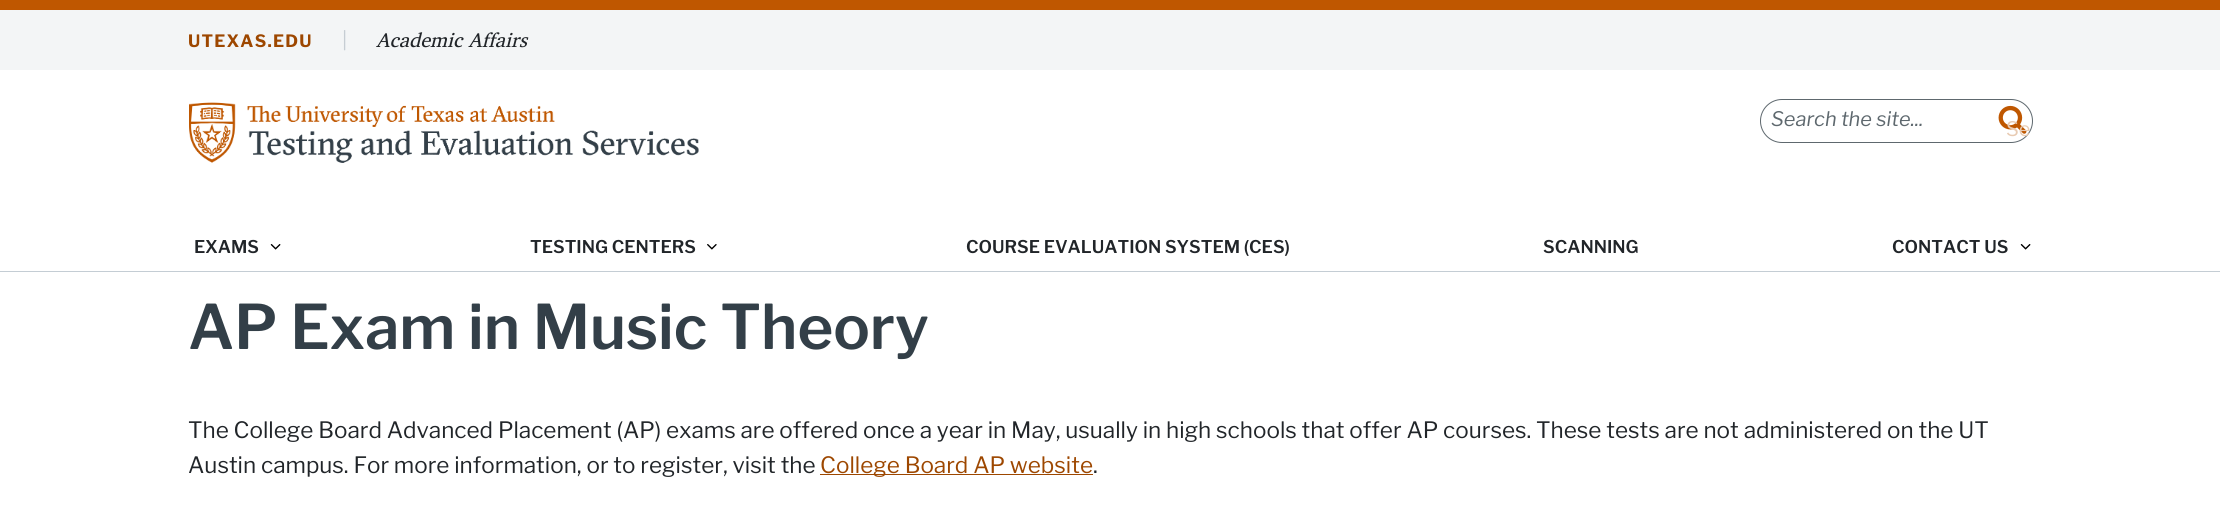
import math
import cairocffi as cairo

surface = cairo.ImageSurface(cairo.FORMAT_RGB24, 2220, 512)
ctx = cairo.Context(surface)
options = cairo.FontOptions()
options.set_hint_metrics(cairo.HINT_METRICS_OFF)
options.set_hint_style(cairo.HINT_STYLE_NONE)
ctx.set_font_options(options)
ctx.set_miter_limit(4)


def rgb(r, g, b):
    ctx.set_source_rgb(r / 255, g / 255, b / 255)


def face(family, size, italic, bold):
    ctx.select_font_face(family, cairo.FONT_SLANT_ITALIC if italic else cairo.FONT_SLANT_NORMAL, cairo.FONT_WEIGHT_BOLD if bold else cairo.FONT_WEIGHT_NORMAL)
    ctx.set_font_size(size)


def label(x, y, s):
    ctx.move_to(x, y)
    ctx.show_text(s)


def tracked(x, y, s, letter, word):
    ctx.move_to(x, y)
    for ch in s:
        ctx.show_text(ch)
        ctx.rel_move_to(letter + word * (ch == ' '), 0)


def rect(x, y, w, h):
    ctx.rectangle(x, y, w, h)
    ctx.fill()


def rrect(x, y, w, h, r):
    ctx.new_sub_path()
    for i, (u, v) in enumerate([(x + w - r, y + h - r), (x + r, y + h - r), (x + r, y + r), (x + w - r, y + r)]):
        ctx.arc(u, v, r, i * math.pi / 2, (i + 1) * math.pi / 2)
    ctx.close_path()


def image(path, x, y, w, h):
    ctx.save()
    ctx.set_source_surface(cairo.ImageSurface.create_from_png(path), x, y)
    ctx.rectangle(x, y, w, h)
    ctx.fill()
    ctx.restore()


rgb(255, 255, 255)
ctx.paint()
rgb(196, 205, 212)
rect(0, 271, 2220, 1)
rgb(191, 87, 0)
rect(0, 0, 2220, 10)
rgb(243, 245, 246)
rect(0, 10, 2220, 60)
face('Libre Franklin', 17, 0, 1)
rgb(157, 71, 0)
tracked(188, 47, 'UTEXAS.EDU', 1.25, 0)
face('Libre Franklin', 20, 0, 0)
rgb(198, 205, 211)
label(342, 47, '|')
face('Charis SIL', 20, 1, 0)
rgb(33, 37, 41)
label(376, 47, 'Academic Affairs')
rrect(1760.5, 99.5, 272, 43, 21.5)
rgb(94, 104, 110)
ctx.set_line_width(1)
ctx.stroke()
face('Libre Franklin', 20, 1, 0)
label(1771, 126, 'Search the site...')
image('image0.png', 1998, 105, 29, 29)
face('Libre Franklin', 20, 0, 0)
rgb(232, 203, 179)
label(2006, 136, 'Se')
face('Libre Franklin SemiBold', 17.5, 0, 0)
rgb(33, 37, 41)
label(194, 253, 'EXAMS')
image('image1.png', 270, 244, 11, 6)
label(530, 253, 'TESTING CENTERS')
image('image2.png', 707, 244, 10, 6)
label(966, 253, 'COURSE EVALUATION SYSTEM (CES)')
label(1543, 253, 'SCANNING')
label(1892, 253, 'CONTACT US')
image('image1.png', 2020, 244, 11, 6)
image('image3.png', 189, 102, 510, 61)
face('Libre Franklin SemiBold', 61.25, 0, 0)
rgb(51, 63, 72)
label(188, 349, 'AP Exam in Music Theory')
face('Libre Franklin', 22.5, 0, 0)
rgb(33, 37, 41)
label(188, 438, 'The College Board Advanced Placement (AP) exams are offered once a year in May, usually in high schools that offer AP courses. These tests are not administered on the UT')
label(188, 473, 'Austin campus. For more information, or to register, visit the')
rgb(157, 71, 0)
rect(820, 474, 273, 1)
label(820, 473, 'College Board AP website')
rgb(33, 37, 41)
label(1093, 473, '.')
surface.write_to_png('render.png')
